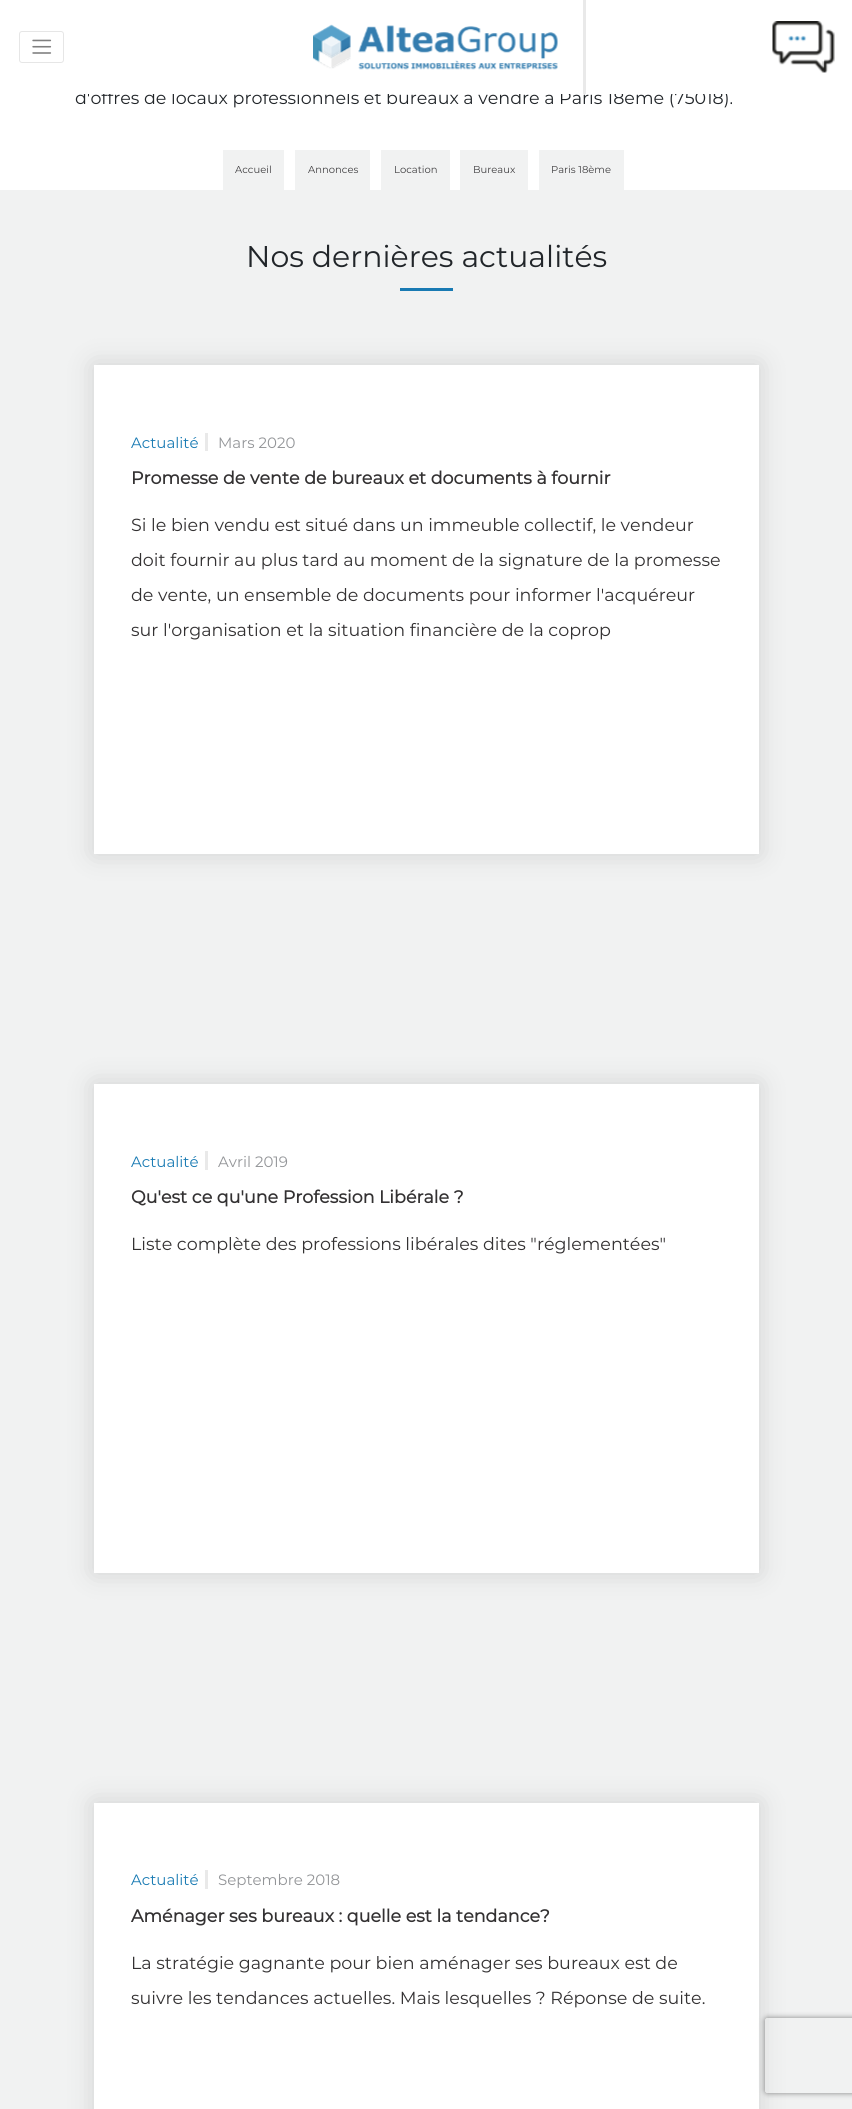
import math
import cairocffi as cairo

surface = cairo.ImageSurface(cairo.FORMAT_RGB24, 852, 2109)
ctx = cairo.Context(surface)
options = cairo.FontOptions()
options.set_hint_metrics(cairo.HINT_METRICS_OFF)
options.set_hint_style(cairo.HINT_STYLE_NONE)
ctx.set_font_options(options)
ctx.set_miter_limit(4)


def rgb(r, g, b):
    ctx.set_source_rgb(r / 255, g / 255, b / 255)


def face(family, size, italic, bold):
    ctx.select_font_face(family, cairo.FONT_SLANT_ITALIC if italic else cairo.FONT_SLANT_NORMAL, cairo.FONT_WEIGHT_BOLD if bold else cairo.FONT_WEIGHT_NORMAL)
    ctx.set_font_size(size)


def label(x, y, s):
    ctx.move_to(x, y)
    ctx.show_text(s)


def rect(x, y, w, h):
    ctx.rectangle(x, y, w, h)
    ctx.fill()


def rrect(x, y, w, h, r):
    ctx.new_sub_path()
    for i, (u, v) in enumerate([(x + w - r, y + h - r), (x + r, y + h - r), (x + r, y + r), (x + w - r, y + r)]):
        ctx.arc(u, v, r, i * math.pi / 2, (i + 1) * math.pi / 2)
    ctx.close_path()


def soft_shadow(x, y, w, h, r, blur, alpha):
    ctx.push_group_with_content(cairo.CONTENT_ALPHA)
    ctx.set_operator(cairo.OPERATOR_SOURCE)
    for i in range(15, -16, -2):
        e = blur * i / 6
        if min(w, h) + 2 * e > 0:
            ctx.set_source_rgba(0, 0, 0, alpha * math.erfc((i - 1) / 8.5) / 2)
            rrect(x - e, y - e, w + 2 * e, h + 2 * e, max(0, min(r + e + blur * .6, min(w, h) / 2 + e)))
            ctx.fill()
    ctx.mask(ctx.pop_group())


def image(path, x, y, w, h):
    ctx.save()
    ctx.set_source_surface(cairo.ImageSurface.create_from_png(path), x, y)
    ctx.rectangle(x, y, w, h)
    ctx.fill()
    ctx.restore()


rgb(255, 255, 255)
ctx.paint()
face('Montserrat', 17.5, 0, 0)
rgb(33, 37, 41)
label(75, 104, 'd\'offres de locaux professionnels et bureaux à vendre à Paris 18ème (75018).')
rgb(255, 255, 255)
rect(83, 90, 644, 4)
rrect(19.5, 31.5, 44, 31, 2.5)
rgb(230, 230, 230)
ctx.set_line_width(1)
ctx.stroke()
image('image0.png', 32, 39, 20, 15)
rgb(233, 233, 233)
rect(583, 0, 3, 94)
image('image1.png', 313, 24, 245, 46)
image('image2.png', 772, 21, 63, 52)
rgb(241, 242, 242)
rect(223, 150, 61, 40)
face('Montserrat', 10, 0, 0)
rgb(65, 64, 66)
label(235, 173, 'Accueil')
rgb(241, 242, 242)
rect(295, 150, 75, 40)
rgb(65, 64, 66)
label(308, 173, 'Annonces')
rgb(241, 242, 242)
rect(381, 150, 69, 40)
rgb(65, 64, 66)
label(394, 173, 'Location')
rgb(241, 242, 242)
rect(460, 150, 68, 40)
rgb(65, 64, 66)
label(473, 173, 'Bureaux')
rgb(241, 242, 242)
rect(539, 150, 85, 40)
rgb(65, 64, 66)
label(551, 173, 'Paris 18ème')
rgb(241, 242, 242)
rect(0, 190, 852, 1919)
face('Montserrat', 30, 0, 0)
rgb(33, 37, 41)
label(246, 267, 'Nos dernières actualités')
rgb(24, 122, 179)
rect(400, 288, 53, 3)
rgb(158, 158, 158)
soft_shadow(94, 365, 665, 489, 0, 12.5, 0.4)
rgb(255, 255, 255)
rect(94, 365, 665, 489)
face('Montserrat', 15, 0, 0)
rgb(24, 122, 179)
label(131, 448, 'Actualité')
rgb(233, 233, 233)
rect(205, 433, 3, 18)
rgb(147, 149, 152)
label(218, 448, 'Mars 2020')
face('Montserrat', 17.5, 0, 1)
rgb(51, 49, 50)
label(131, 484, 'Promesse de vente de bureaux et documents à fournir')
face('Montserrat', 17.5, 0, 0)
label(131, 531, 'Si le bien vendu est situé dans un immeuble collectif, le vendeur')
label(131, 566, 'doit fournir au plus tard au moment de la signature de la promesse')
label(131, 601, 'de vente, un ensemble de documents pour informer l\'acquéreur')
label(131, 636, 'sur l\'organisation et la situation financière de la coprop')
rgb(158, 158, 158)
soft_shadow(94, 1084, 665, 489, 0, 12.5, 0.4)
rgb(255, 255, 255)
rect(94, 1084, 665, 489)
face('Montserrat', 15, 0, 0)
rgb(24, 122, 179)
label(131, 1167, 'Actualité')
rgb(233, 233, 233)
rect(205, 1151, 3, 19)
rgb(147, 149, 152)
label(218, 1167, 'Avril 2019')
face('Montserrat', 17.5, 0, 1)
rgb(51, 49, 50)
label(131, 1203, 'Qu\'est ce qu\'une Profession Libérale ?')
face('Montserrat', 17.5, 0, 0)
label(131, 1250, 'Liste complète des professions libérales dites "réglementées"')
rgb(158, 158, 158)
soft_shadow(94, 1803, 665, 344, 0, 12.5, 0.4)
rgb(255, 255, 255)
rect(94, 1803, 665, 306)
face('Montserrat', 15, 0, 0)
rgb(24, 122, 179)
label(131, 1885, 'Actualité')
rgb(233, 233, 233)
rect(205, 1870, 3, 19)
rgb(147, 149, 152)
label(218, 1885, 'Septembre 2018')
face('Montserrat', 17.5, 0, 1)
rgb(51, 49, 50)
label(131, 1922, 'Aménager ses bureaux : quelle est la tendance?')
face('Montserrat', 17.5, 0, 0)
label(131, 1969, 'La stratégie gagnante pour bien aménager ses bureaux est de')
label(131, 2004, 'suivre les tendances actuelles. Mais lesquelles ? Réponse de suite.')
ctx.save()
ctx.set_fill_rule(cairo.FILL_RULE_EVEN_ODD)
ctx.new_path()
ctx.move_to(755, 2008)
ctx.line_to(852, 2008)
ctx.line_to(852, 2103)
ctx.line_to(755, 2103)
ctx.close_path()
ctx.move_to(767.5, 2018)
ctx.line_to(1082.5, 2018)
ctx.curve_to(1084, 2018, 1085, 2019, 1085, 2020.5)
ctx.line_to(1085, 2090.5)
ctx.curve_to(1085, 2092, 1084, 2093, 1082.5, 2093)
ctx.line_to(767.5, 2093)
ctx.curve_to(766, 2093, 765, 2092, 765, 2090.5)
ctx.line_to(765, 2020.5)
ctx.curve_to(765, 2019, 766, 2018, 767.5, 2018)
ctx.close_path()
ctx.clip()
rgb(128, 128, 128)
soft_shadow(765, 2018, 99, 75, 2.5, 3, 1)
ctx.restore()
surface.write_to_png('render.png')
